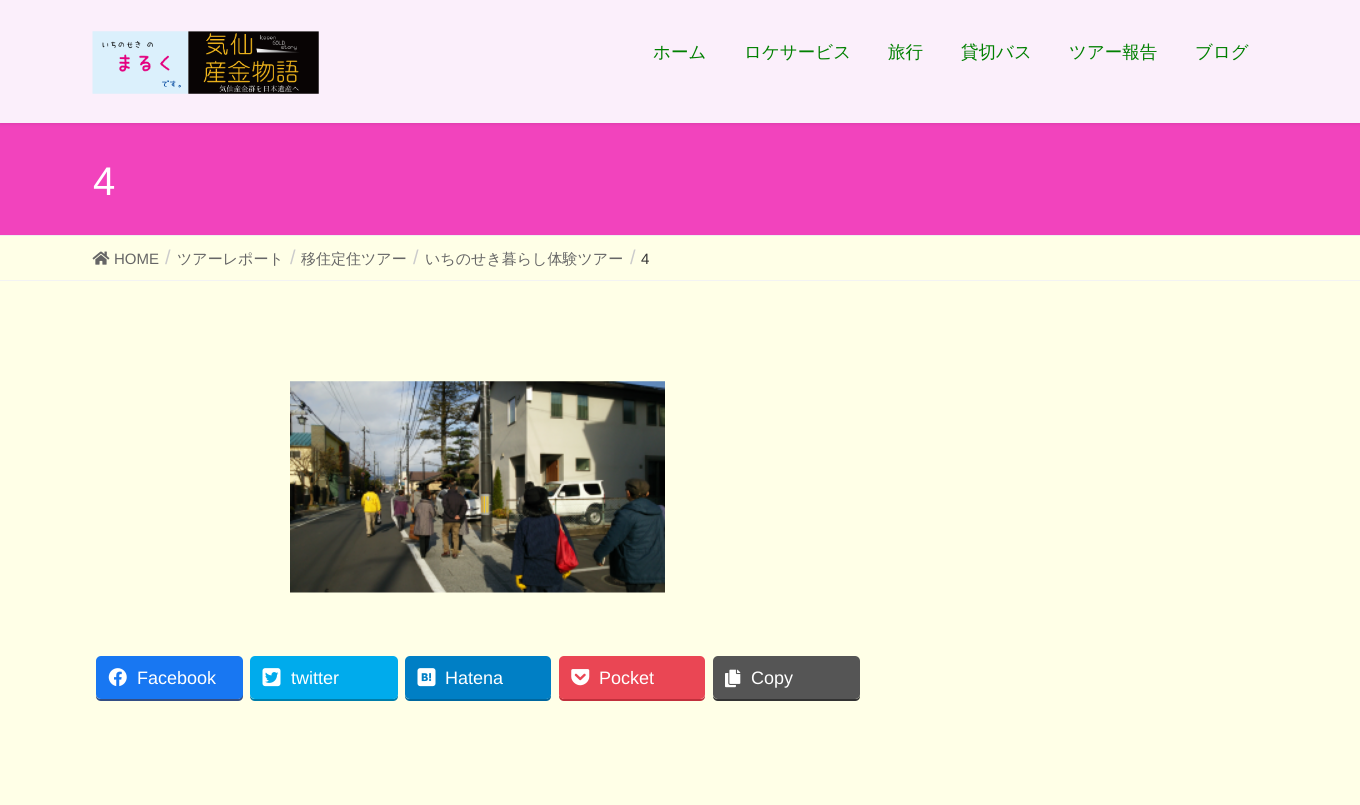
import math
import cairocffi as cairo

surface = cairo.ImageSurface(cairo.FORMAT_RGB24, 1360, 805)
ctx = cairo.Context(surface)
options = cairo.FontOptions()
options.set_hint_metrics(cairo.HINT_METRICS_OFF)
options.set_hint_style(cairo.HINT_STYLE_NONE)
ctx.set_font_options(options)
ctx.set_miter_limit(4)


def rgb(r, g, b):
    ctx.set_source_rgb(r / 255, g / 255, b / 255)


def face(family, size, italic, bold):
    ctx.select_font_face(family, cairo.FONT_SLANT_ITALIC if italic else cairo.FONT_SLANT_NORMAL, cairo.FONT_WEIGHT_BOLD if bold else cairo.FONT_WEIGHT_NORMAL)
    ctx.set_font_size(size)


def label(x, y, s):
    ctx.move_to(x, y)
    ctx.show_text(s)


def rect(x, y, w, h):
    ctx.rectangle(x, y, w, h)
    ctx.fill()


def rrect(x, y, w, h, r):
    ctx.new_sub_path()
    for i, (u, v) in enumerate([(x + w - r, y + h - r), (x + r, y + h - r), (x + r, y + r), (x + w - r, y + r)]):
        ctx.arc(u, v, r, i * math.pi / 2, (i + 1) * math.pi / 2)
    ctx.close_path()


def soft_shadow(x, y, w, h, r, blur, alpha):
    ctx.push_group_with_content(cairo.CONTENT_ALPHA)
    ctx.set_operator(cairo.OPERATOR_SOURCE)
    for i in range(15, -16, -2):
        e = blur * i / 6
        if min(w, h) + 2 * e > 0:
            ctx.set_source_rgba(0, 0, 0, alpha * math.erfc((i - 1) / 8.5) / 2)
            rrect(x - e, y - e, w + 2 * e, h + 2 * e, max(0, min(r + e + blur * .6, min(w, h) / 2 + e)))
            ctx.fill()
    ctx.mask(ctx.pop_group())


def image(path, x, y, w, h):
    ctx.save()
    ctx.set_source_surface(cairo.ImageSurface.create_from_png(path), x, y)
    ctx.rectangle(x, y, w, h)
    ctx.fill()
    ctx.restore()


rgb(255, 255, 231)
ctx.paint()
rgb(242, 67, 189)
rect(0, 123, 1360, 112)
rgb(0, 0, 0)
soft_shadow(0, 1, 1360, 123, 0, 2, 0.1)
rgb(251, 239, 251)
rect(0, 0, 1360, 123)
image('image0.png', 92, 31, 227, 63)
face('WenQuanYi Zen Hei Medium', 17.5, 0, 0)
rgb(0, 128, 0)
label(653, 58, 'ホーム')
label(744, 58, 'ロケサービス')
label(888, 58, '旅行')
label(961, 58, '貸切バス')
label(1069, 58, 'ツアー報告')
label(1195, 58, 'ブログ')
rgb(238, 238, 238)
rect(0, 235, 1360, 1)
face('Liberation Sans', 40, 0, 0)
rgb(255, 255, 255)
label(93, 195, '4')
rgb(243, 243, 243)
rect(0, 280, 1360, 1)
image('image1.png', 92, 251, 18, 14)
face('Liberation Sans', 15, 0, 0)
rgb(102, 102, 102)
label(114, 264, 'HOME')
face('Liberation Sans', 20, 0, 0)
rgb(204, 204, 204)
label(165, 264, '/')
face('WenQuanYi Zen Hei Medium', 15, 0, 0)
rgb(102, 102, 102)
label(177, 264, 'ツアーレポート')
face('Liberation Sans', 20, 0, 0)
rgb(204, 204, 204)
label(290, 264, '/')
face('WenQuanYi Zen Hei Medium', 15, 0, 0)
rgb(102, 102, 102)
label(301, 264, '移住定住ツアー')
face('Liberation Sans', 20, 0, 0)
rgb(204, 204, 204)
label(413, 264, '/')
face('WenQuanYi Zen Hei Medium', 15, 0, 0)
rgb(102, 102, 102)
label(425, 264, 'いちのせき暮らし体験ツアー')
face('Liberation Sans', 20, 0, 0)
rgb(204, 204, 204)
label(630, 264, '/')
face('Liberation Sans', 15, 0, 0)
rgb(51, 51, 51)
label(641, 264, '4')
image('image2.png', 290, 381, 375, 212)
rgb(52, 78, 132)
ctx.new_path()
ctx.move_to(96, 662)
ctx.line_to(96, 696)
ctx.curve_to(96, 699, 98, 701, 101, 701)
ctx.line_to(238, 701)
ctx.curve_to(241, 701, 243, 699, 243, 696)
ctx.line_to(243, 664)
ctx.line_to(242, 662)
ctx.line_to(242, 694)
ctx.curve_to(242, 697, 240, 699, 238, 699)
ctx.line_to(101, 699)
ctx.curve_to(98, 699, 96, 697, 96, 694)
ctx.close_path()
ctx.fill()
rgb(24, 119, 242)
rrect(96, 656, 147, 43, 5)
ctx.fill()
image('image3.png', 108, 668, 19, 19)
face('Liberation Sans', 18, 0, 0)
rgb(255, 255, 255)
label(137, 684, 'Facebook')
rgb(0, 126, 170)
ctx.new_path()
ctx.move_to(250, 694)
ctx.line_to(250, 696)
ctx.curve_to(250, 699, 252, 701, 255, 701)
ctx.line_to(393, 701)
ctx.curve_to(396, 701, 398, 699, 398, 696)
ctx.line_to(398, 664)
ctx.line_to(398, 662)
ctx.line_to(398, 694)
ctx.curve_to(398, 697, 395, 699, 392, 699)
ctx.line_to(255, 699)
ctx.curve_to(252, 699, 250, 697, 250, 694)
ctx.close_path()
ctx.fill()
rgb(0, 171, 236)
rrect(250, 656, 148, 43, 5)
ctx.fill()
image('image4.png', 262, 668, 19, 19)
rgb(255, 255, 255)
label(291, 684, 'twitter')
rgb(0, 103, 159)
ctx.new_path()
ctx.move_to(405, 694)
ctx.line_to(405, 696)
ctx.curve_to(405, 699, 407, 701, 410, 701)
ctx.line_to(546, 701)
ctx.curve_to(549, 701, 551, 699, 551, 696)
ctx.line_to(551, 695)
ctx.curve_to(550, 697, 548, 699, 546, 699)
ctx.line_to(410, 699)
ctx.curve_to(407, 699, 405, 697, 405, 694)
ctx.close_path()
ctx.fill()
rgb(0, 127, 197)
rrect(405, 656, 146, 43, 5)
ctx.fill()
image('image5.png', 417, 668, 19, 19)
rgb(255, 255, 255)
label(445, 684, 'Hatena')
rgb(193, 48, 60)
ctx.new_path()
ctx.move_to(559, 695)
ctx.line_to(559, 696)
ctx.curve_to(559, 699, 561, 701, 564, 701)
ctx.line_to(700, 701)
ctx.curve_to(703, 701, 705, 699, 705, 696)
ctx.line_to(705, 694)
ctx.curve_to(705, 697, 703, 699, 700, 699)
ctx.line_to(564, 699)
ctx.curve_to(562, 699, 560, 697, 559, 695)
ctx.close_path()
ctx.fill()
rgb(234, 70, 84)
rrect(559, 656, 146, 43, 5)
ctx.fill()
image('image6.png', 571, 669, 19, 17)
rgb(255, 255, 255)
label(599, 684, 'Pocket')
rgb(51, 51, 51)
ctx.new_path()
ctx.move_to(713, 696)
ctx.curve_to(713, 699, 715, 701, 718, 701)
ctx.line_to(855, 701)
ctx.curve_to(858, 701, 860, 699, 860, 696)
ctx.line_to(860, 694)
ctx.curve_to(860, 697, 858, 699, 855, 699)
ctx.line_to(718, 699)
ctx.curve_to(716, 699, 714, 698, 713, 696)
ctx.close_path()
ctx.fill()
rgb(85, 85, 85)
rrect(713, 656, 147, 43, 5)
ctx.fill()
image('image7.png', 725, 669, 16, 19)
rgb(255, 255, 255)
label(751, 684, 'Copy')
surface.write_to_png('render.png')
